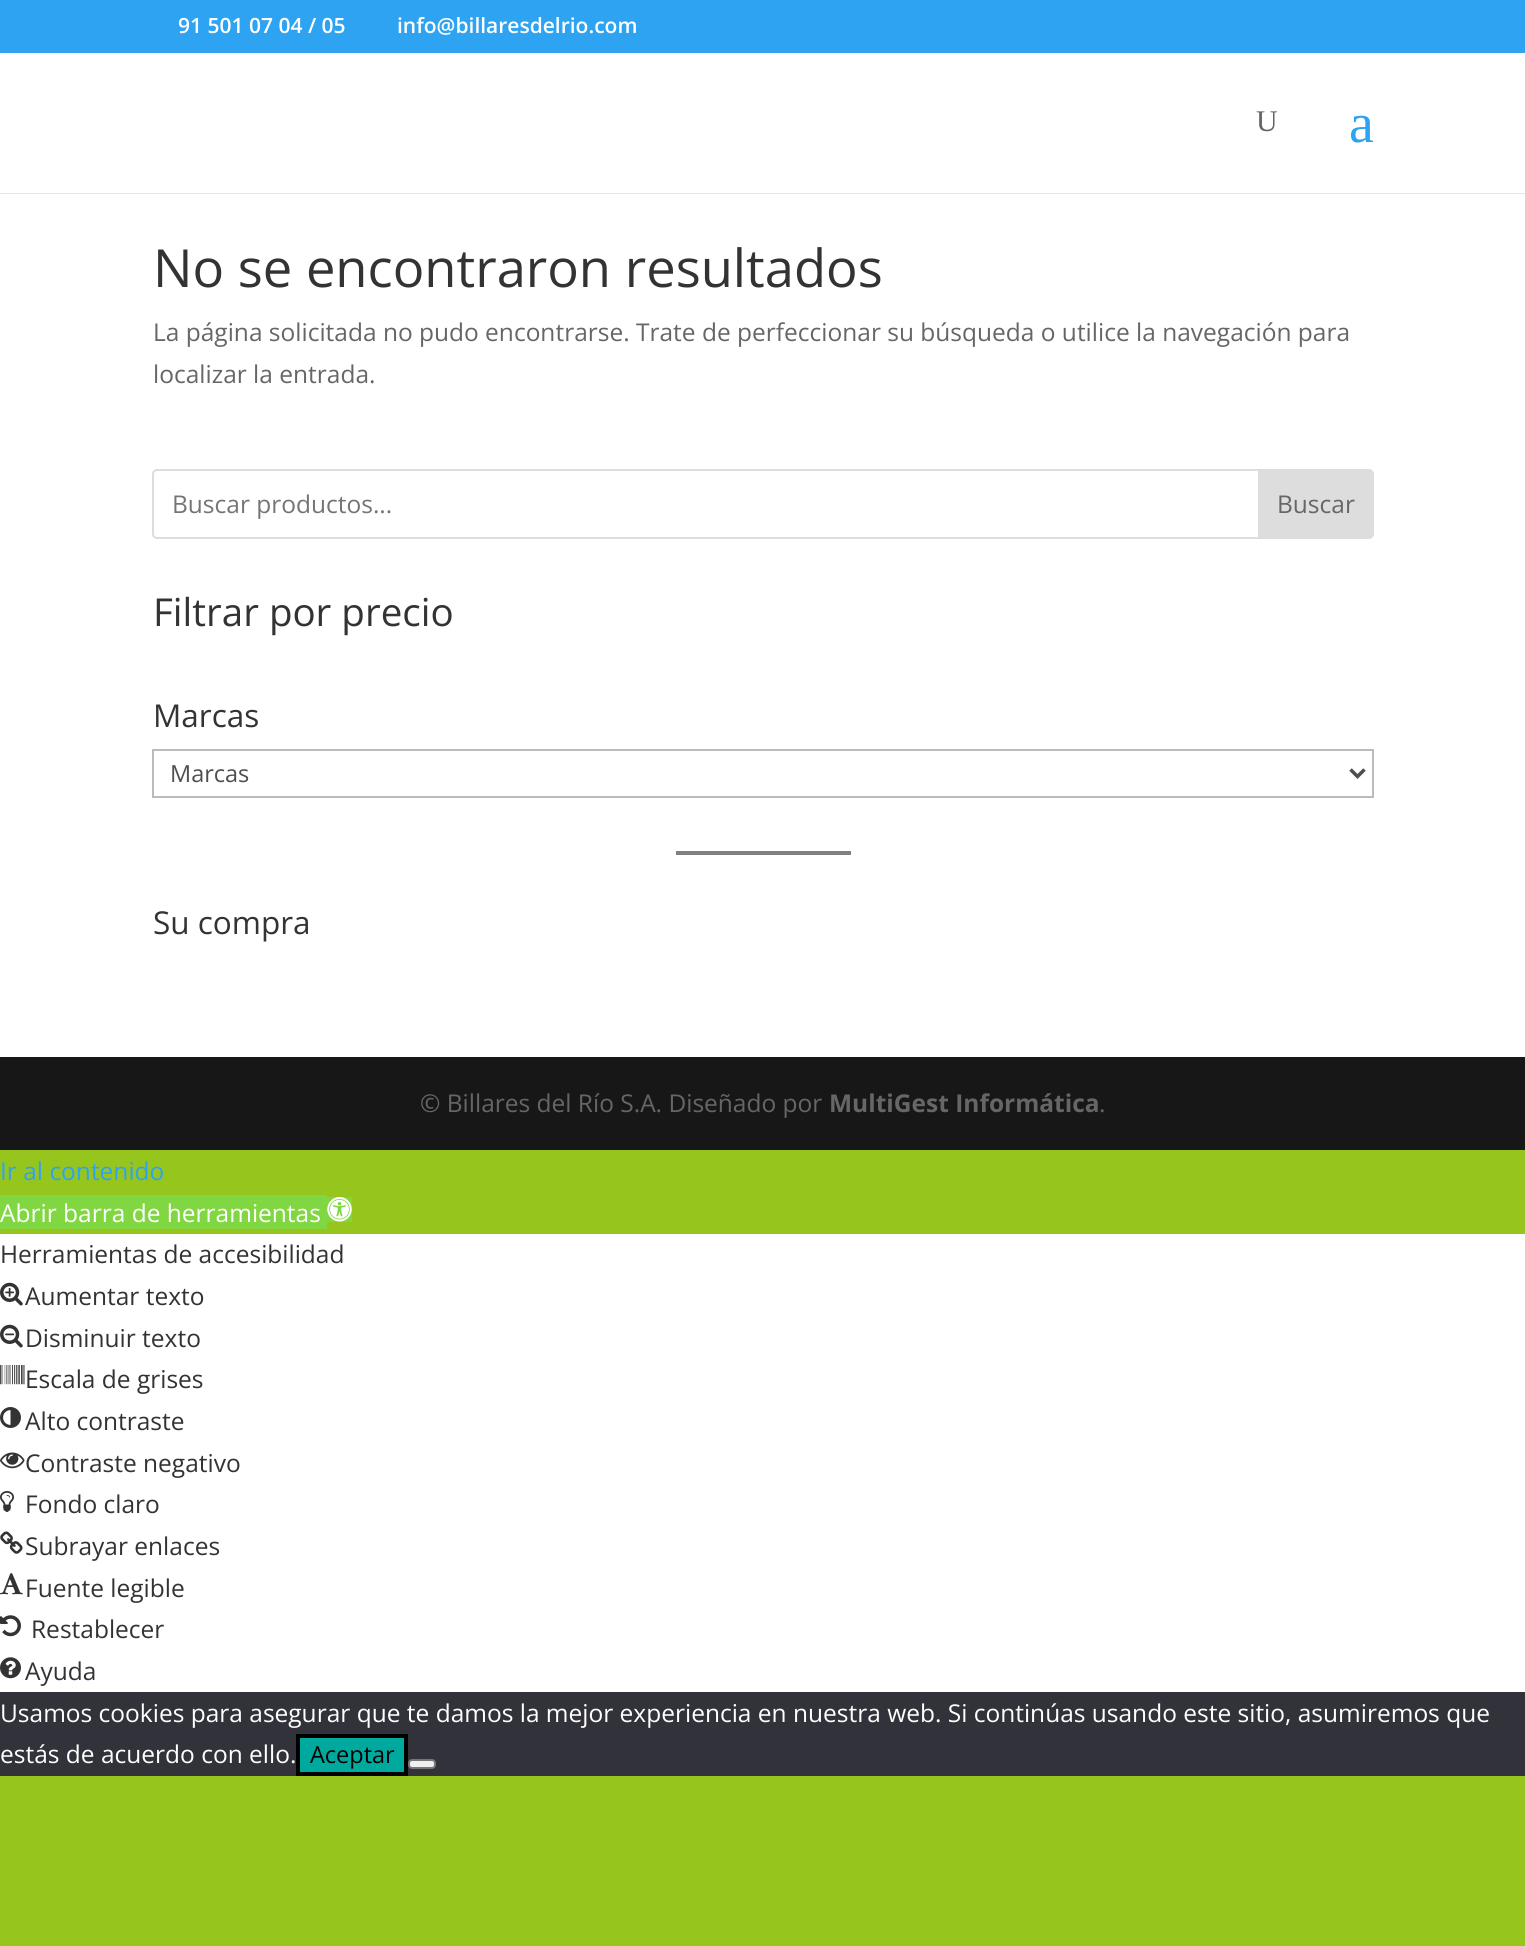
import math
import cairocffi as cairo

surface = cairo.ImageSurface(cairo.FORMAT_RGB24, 1525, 1946)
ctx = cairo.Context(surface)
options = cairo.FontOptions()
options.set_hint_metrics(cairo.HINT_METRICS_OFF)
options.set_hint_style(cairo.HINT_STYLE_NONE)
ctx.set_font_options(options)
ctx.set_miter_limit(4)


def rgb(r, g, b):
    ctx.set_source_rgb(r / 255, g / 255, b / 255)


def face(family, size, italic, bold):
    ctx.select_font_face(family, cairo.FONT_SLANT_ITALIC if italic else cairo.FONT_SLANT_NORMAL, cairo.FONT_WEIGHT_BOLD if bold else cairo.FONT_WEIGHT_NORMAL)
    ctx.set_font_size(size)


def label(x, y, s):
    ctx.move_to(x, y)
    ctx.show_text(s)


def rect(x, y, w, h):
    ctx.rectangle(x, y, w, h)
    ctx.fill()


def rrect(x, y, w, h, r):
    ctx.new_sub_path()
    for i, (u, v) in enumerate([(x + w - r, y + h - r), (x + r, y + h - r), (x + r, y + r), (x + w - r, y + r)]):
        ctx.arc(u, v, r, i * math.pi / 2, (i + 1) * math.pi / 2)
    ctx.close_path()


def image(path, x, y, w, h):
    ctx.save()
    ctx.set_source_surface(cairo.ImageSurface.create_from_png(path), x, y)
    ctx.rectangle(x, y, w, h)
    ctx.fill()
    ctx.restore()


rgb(150, 197, 29)
ctx.paint()
rgb(46, 163, 242)
rect(0, 0, 1525, 53)
face('Open Sans SemiBold', 21, 0, 0)
rgb(255, 255, 255)
label(178, 33, '91 501 07 04 / 05')
label(397, 33, 'info@billaresdelrio.com')
rgb(230, 230, 230)
rect(0, 193, 1525, 1)
rgb(255, 255, 255)
rect(0, 53, 1525, 140)
face('Liberation Serif', 30, 0, 0)
rgb(102, 102, 102)
label(1256, 131, 'U')
face('Liberation Serif', 56, 0, 0)
rgb(46, 163, 242)
label(1349, 142, 'a')
rgb(255, 255, 255)
rect(0, 194, 1525, 863)
face('Open Sans', 52.5, 0, 0)
rgb(51, 51, 51)
label(153, 287, 'No se encontraron resultados')
face('Open Sans', 24.5, 0, 0)
rgb(102, 102, 102)
label(153, 341, 'La página solicitada no pudo encontrarse. Trate de perfeccionar su búsqueda o utilice la navegación para')
label(153, 383, 'localizar la entrada.')
rrect(153, 470, 1164, 68, 4)
rgb(221, 221, 221)
ctx.stroke()
rgb(117, 117, 117)
label(172, 513, 'Buscar productos...')
rgb(221, 221, 221)
ctx.new_path()
ctx.move_to(1259, 470)
ctx.line_to(1369, 470)
ctx.curve_to(1371, 470, 1373, 472, 1373, 474)
ctx.line_to(1373, 534)
ctx.curve_to(1373, 536, 1371, 538, 1369, 538)
ctx.line_to(1259, 538)
ctx.close_path()
ctx.fill_preserve()
ctx.stroke()
rgb(102, 102, 102)
label(1277, 513, 'Buscar')
face('Open Sans', 38.5, 0, 0)
rgb(51, 51, 51)
label(153, 626, 'Filtrar por precio')
face('Open Sans', 31.5, 0, 0)
label(153, 727, 'Marcas')
ctx.rectangle(153, 750, 1220, 47)
rgb(187, 187, 187)
ctx.stroke()
ctx.new_path()
ctx.move_to(1350.5, 769.5)
ctx.line_to(1357.5, 776.5)
ctx.line_to(1364.5, 769.5)
rgb(78, 78, 78)
ctx.set_line_width(3.5)
ctx.stroke()
face('Open Sans', 23.5, 0, 0)
label(170, 782, 'Marcas')
rgb(128, 128, 128)
rect(676, 851, 175, 4)
face('Open Sans', 31.5, 0, 0)
rgb(51, 51, 51)
label(153, 934, 'Su compra')
rgb(23, 23, 23)
rect(0, 1057, 1525, 93)
face('Open Sans', 24.5, 0, 0)
rgb(102, 102, 102)
label(420, 1112, '© Billares del Río S.A. Diseñado por')
face('Open Sans', 24.5, 0, 1)
label(829, 1112, 'MultiGest Informática')
face('Open Sans', 24.5, 0, 0)
label(1099, 1112, '.')
rgb(46, 163, 242)
label(0, 1180, 'Ir al contenido')
rgb(129, 215, 66)
rect(0, 1195, 327, 34)
rgb(255, 255, 255)
label(0, 1222, 'Abrir barra de herramientas')
rgb(129, 215, 66)
rect(327, 1197, 25, 25)
image('image0.png', 327, 1197, 25, 25)
rgb(255, 255, 255)
rect(0, 1234, 1525, 458)
rgb(51, 51, 51)
label(0, 1263, 'Herramientas de accesibilidad')
image('image1.png', 0, 1282, 23, 24)
label(25, 1305, 'Aumentar texto')
image('image2.png', 0, 1324, 23, 24)
label(25, 1347, 'Disminuir texto')
image('image3.png', 0, 1365, 25, 20)
label(25, 1388, 'Escala de grises')
image('image4.png', 0, 1407, 21, 21)
label(25, 1430, 'Alto contraste')
image('image5.png', 0, 1452, 25, 17)
label(25, 1472, 'Contraste negativo')
image('image6.png', 0, 1491, 14, 21)
label(25, 1513, 'Fondo claro')
image('image7.png', 0, 1531, 23, 23)
label(25, 1555, 'Subrayar enlaces')
image('image8.png', 0, 1573, 23, 22)
label(25, 1597, 'Fuente legible')
image('image9.png', 0, 1615, 21, 22)
label(31, 1638, 'Restablecer')
image('image10.png', 0, 1657, 21, 22)
label(25, 1680, 'Ayuda')
rgb(50, 50, 58)
rect(0, 1692, 1525, 84)
rgb(255, 255, 255)
label(0, 1722, 'Usamos cookies para asegurar que te damos la mejor experiencia en nuestra web. Si continúas usando este sitio, asumiremos que')
label(0, 1763, 'estás de acuerdo con ello.')
rgb(0, 169, 157)
ctx.rectangle(298, 1736, 108, 38)
ctx.fill_preserve()
rgb(0, 0, 0)
ctx.set_line_width(4)
ctx.stroke()
face('Open Sans', 23.5, 0, 0)
label(310, 1763, 'Aceptar')
rgb(239, 239, 239)
rrect(409, 1760, 26, 8, 3)
ctx.fill_preserve()
rgb(118, 118, 118)
ctx.set_line_width(2)
ctx.stroke()
surface.write_to_png('render.png')
